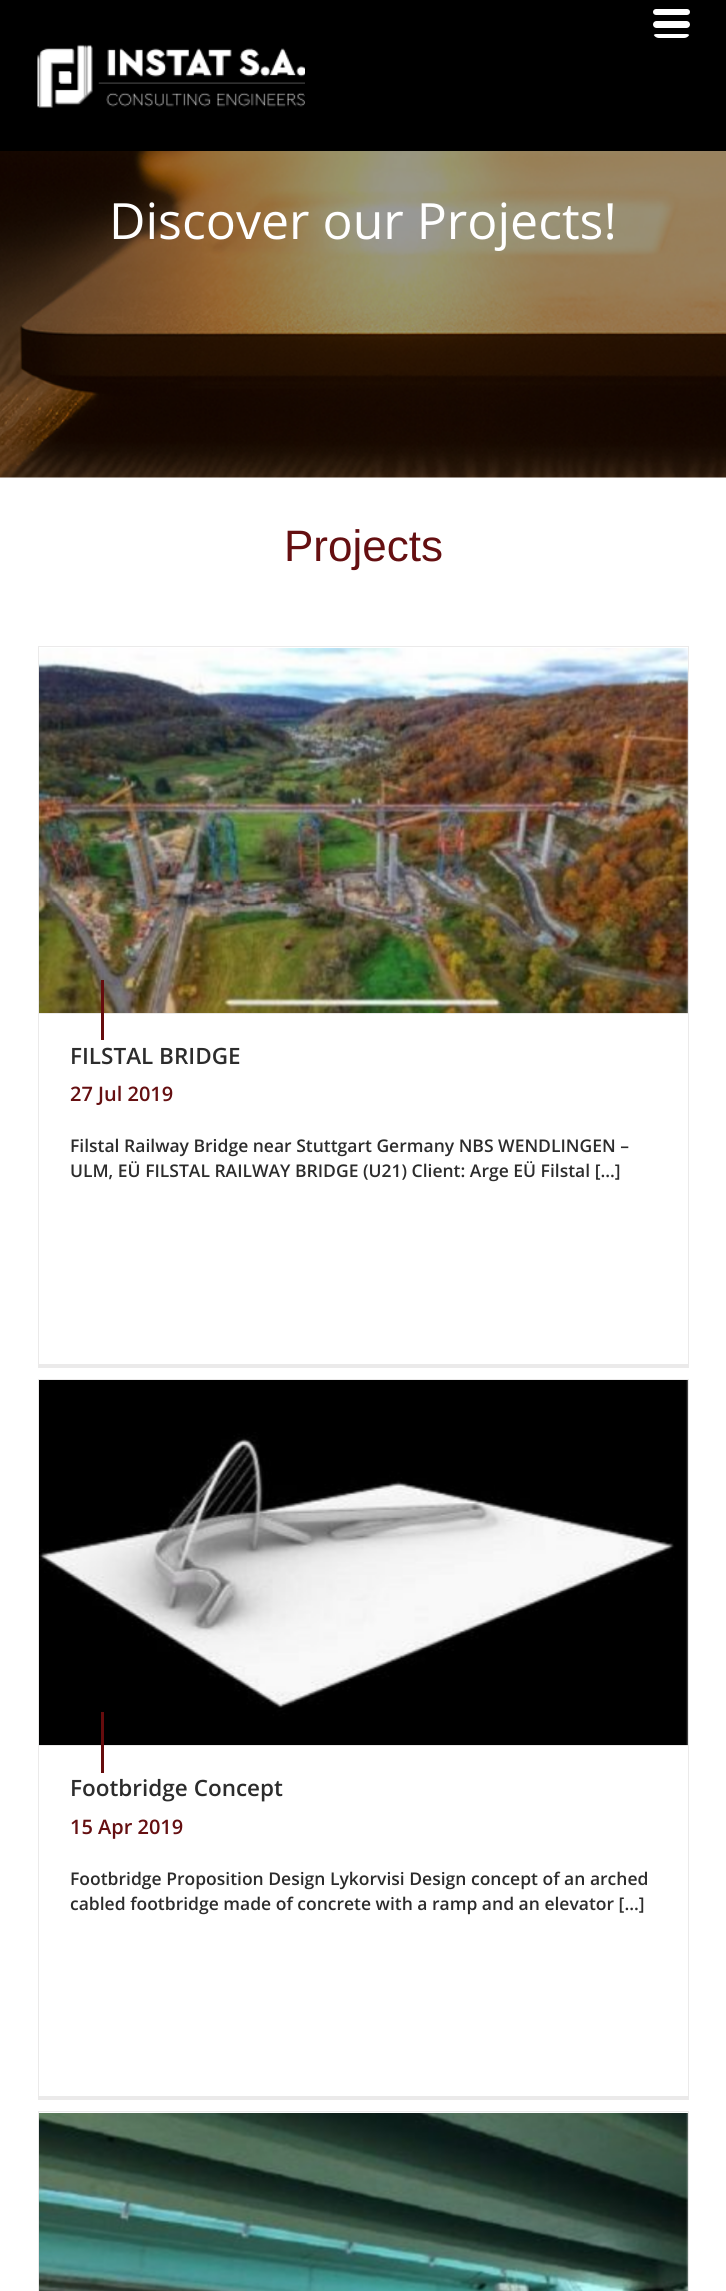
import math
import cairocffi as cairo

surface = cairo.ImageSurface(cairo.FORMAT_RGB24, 726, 2291)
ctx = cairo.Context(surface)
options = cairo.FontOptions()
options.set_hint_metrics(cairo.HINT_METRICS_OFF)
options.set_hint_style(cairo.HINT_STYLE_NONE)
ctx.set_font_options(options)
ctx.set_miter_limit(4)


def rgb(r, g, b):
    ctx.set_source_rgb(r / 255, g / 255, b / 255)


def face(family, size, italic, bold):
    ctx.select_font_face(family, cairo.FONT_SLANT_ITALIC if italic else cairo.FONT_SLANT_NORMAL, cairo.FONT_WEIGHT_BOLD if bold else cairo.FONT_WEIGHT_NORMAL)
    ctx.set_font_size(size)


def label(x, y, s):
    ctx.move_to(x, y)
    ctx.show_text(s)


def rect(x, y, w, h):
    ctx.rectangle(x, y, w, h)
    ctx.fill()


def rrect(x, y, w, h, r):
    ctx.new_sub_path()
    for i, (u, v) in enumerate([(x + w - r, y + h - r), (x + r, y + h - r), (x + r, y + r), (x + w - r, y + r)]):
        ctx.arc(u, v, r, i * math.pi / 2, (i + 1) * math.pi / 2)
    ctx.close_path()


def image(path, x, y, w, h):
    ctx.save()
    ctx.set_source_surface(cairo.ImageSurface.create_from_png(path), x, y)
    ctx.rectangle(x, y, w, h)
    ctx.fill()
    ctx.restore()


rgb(255, 255, 255)
ctx.paint()
rgb(0, 0, 0)
rect(0, 0, 726, 151)
rgb(255, 255, 255)
rrect(653, 21, 37, 7, 3.5)
ctx.fill()
rrect(653, 9, 37, 6, 3)
ctx.fill()
ctx.save()
rrect(653, 6, 37, 32, 6)
ctx.clip()
rrect(653, 34, 37, 6, 3)
ctx.fill()
ctx.restore()
image('image0.png', 37, 44, 268, 64)
image('image1.png', 0, 151, 726, 327)
face('Open Sans', 50, 0, 0)
label(109, 239, 'Discover our Projects!')
face('Liberation Sans', 44, 0, 0)
rgb(101, 15, 17)
label(284, 561, 'Projects')
rgb(235, 234, 234)
rect(38, 646, 651, 1)
rect(688, 646, 1, 722)
rect(38, 1364, 651, 4)
rect(38, 646, 1, 722)
rect(39, 1013, 649, 1)
image('image2.png', 39, 648, 649, 365)
rgb(102, 12, 13)
rect(101, 980, 3, 60)
face('Open Sans SemiBold', 22.5, 0, 0)
rgb(44, 44, 44)
label(70, 1064, 'FILSTAL BRIDGE')
face('Open Sans SemiBold', 20, 0, 0)
rgb(101, 15, 17)
label(70, 1101, '27 Jul 2019')
face('Open Sans SemiBold', 17.5, 0, 0)
rgb(44, 44, 44)
label(70, 1152, 'Filstal Railway Bridge near Stuttgart Germany NBS WENDLINGEN –')
label(70, 1177, 'ULM, EÜ FILSTAL RAILWAY BRIDGE (U21) Client: Arge EÜ Filstal [...]')
rgb(235, 234, 234)
rect(38, 1379, 651, 1)
rect(688, 1379, 1, 721)
rect(38, 2096, 651, 4)
rect(38, 1379, 1, 721)
rect(39, 1745, 649, 1)
image('image3.png', 39, 1380, 649, 365)
rgb(102, 12, 13)
rect(101, 1712, 3, 61)
face('Open Sans SemiBold', 22.5, 0, 0)
rgb(44, 44, 44)
label(70, 1796, 'Footbridge Concept')
face('Open Sans SemiBold', 20, 0, 0)
rgb(101, 15, 17)
label(70, 1834, '15 Apr 2019')
face('Open Sans SemiBold', 17.5, 0, 0)
rgb(44, 44, 44)
label(70, 1885, 'Footbridge Proposition Design Lykorvisi Design concept of an arched')
label(70, 1910, 'cabled footbridge made of concrete with a ramp and an elevator [...]')
rgb(235, 234, 234)
rect(38, 2111, 651, 1)
rect(688, 2111, 1, 180)
rect(38, 2111, 1, 180)
image('image4.png', 39, 2113, 649, 178)
surface.write_to_png('render.png')
